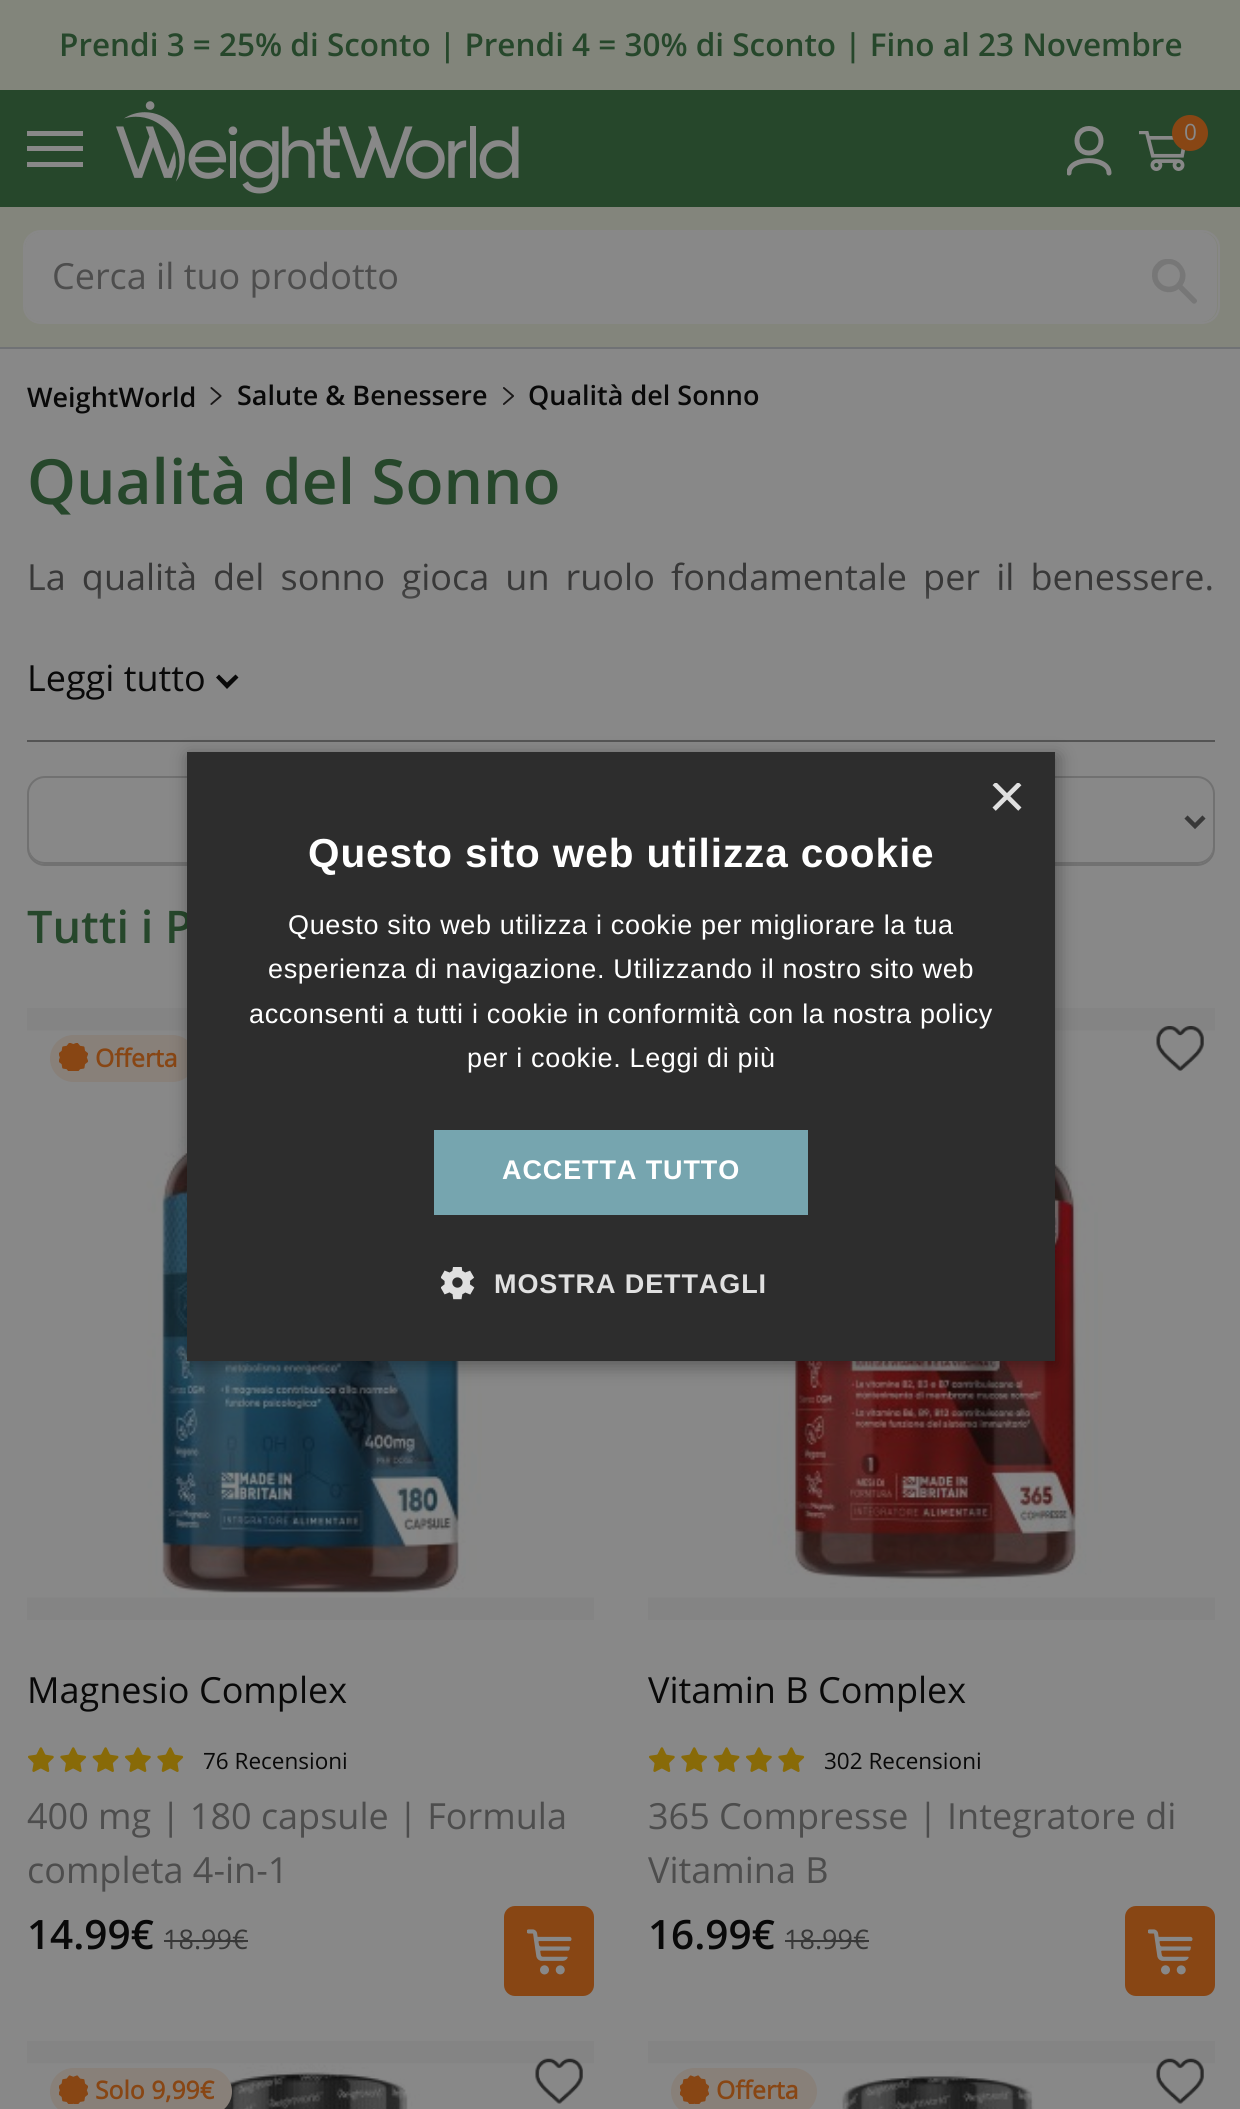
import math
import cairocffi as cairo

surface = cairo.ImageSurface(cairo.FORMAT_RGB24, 1240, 2109)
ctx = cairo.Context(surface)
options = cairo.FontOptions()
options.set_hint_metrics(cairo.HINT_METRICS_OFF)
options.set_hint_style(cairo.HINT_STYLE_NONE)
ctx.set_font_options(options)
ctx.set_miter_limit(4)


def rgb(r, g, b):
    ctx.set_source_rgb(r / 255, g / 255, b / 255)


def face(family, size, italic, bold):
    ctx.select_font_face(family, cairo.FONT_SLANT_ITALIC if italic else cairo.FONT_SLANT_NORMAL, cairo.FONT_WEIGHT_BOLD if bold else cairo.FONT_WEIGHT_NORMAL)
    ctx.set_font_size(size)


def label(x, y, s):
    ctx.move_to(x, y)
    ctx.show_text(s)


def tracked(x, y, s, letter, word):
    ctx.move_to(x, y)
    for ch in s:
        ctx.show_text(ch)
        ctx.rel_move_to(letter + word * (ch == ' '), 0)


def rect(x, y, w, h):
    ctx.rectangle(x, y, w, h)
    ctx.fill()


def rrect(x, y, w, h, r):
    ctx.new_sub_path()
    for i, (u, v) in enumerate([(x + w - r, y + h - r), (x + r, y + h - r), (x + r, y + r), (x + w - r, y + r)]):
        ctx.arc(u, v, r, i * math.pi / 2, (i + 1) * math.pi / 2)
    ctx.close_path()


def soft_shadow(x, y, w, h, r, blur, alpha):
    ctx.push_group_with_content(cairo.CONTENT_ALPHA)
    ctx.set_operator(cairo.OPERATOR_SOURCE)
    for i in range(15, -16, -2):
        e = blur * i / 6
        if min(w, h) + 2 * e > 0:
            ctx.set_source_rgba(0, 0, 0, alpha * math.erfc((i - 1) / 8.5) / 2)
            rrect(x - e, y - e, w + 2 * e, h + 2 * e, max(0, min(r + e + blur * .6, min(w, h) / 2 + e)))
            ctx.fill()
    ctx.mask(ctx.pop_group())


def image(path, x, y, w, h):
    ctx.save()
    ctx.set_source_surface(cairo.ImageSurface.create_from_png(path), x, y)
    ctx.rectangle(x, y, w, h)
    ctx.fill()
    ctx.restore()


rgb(136, 136, 136)
ctx.paint()
rgb(130, 133, 123)
rect(0, 0, 1240, 90)
face('Open Sans SemiBold', 31.5, 0, 0)
rgb(38, 71, 43)
label(59, 56, 'Prendi 3 = 25% di Sconto | Prendi 4 = 30% di Sconto | Fino al 23 Novembre')
rect(0, 90, 1240, 117)
rgb(112, 114, 117)
rect(0, 347, 1240, 2)
rgb(136, 136, 136)
rect(27, 146, 56, 5)
rect(27, 131, 56, 5)
rect(27, 162, 56, 5)
image('image0.png', 116, 101, 403, 93)
ctx.save()
ctx.rectangle(1067, 126, 45, 50)
ctx.clip()
ctx.new_path()
ctx.move_to(1109, 173)
ctx.curve_to(1109, 156.5, 1069, 156.5, 1069, 173)
ctx.move_to(1089, 153)
ctx.curve_to(1073, 153, 1073, 128.5, 1089, 128.5)
ctx.curve_to(1105, 128.5, 1105, 153, 1089, 153)
ctx.close_path()
ctx.set_line_width(5)
ctx.set_line_cap(cairo.LINE_CAP_ROUND)
ctx.set_line_join(cairo.LINE_JOIN_ROUND)
ctx.stroke()
ctx.restore()
image('image1.png', 1139, 131, 46, 40)
rgb(136, 70, 20)
ctx.arc(1190, 133, 18, 0, 2 * math.pi)
ctx.fill()
face('Open Sans', 22.5, 0, 0)
rgb(136, 136, 136)
label(1184, 140, '0')
rgb(131, 133, 124)
rect(0, 207, 1240, 140)
rgb(136, 136, 136)
rrect(25, 232, 1192, 90, 16)
ctx.fill()
rrect(24, 231, 1195, 92, 17)
ctx.stroke()
face('Open Sans', 36, 0, 0)
rgb(77, 77, 77)
label(52, 289, 'Cerca il tuo prodotto')
image('image2.png', 1152, 259, 45, 45)
face('Open Sans SemiBold', 27, 0, 0)
rgb(9, 9, 9)
label(27, 407, 'WeightWorld')
image('image3.png', 210, 387, 12, 18)
label(237, 405, 'Salute & Benessere')
image('image4.png', 503, 387, 11, 18)
label(528, 405, 'Qualità del Sonno')
rgb(84, 84, 84)
rect(27, 740, 1188, 2)
face('Open Sans SemiBold', 62.25, 0, 0)
rgb(38, 71, 43)
label(27, 504, 'Qualità del Sonno')
face('Open Sans', 36, 0, 0)
rgb(56, 56, 56)
tracked(27, 590, 'La qualità del sonno gioca un ruolo fondamentale per il benessere.', 0, 6.75)
gradient = cairo.LinearGradient(621, 585, 621, 653)
gradient.add_color_stop_rgba(0, 0.533, 0.533, 0.533, 0)
gradient.add_color_stop_rgba(1, 0.533, 0.533, 0.533, 1)
ctx.set_source(gradient)
rect(31, 587, 1181, 12)
rgb(9, 9, 9)
label(27, 691, 'Leggi tutto')
ctx.new_path()
ctx.move_to(235.5, 674.5)
ctx.line_to(227, 682.5)
ctx.line_to(219, 674.5)
ctx.line_to(216, 677.5)
ctx.line_to(227, 689)
ctx.line_to(238.5, 677.5)
ctx.close_path()
ctx.fill()
rgb(113, 113, 113)
ctx.new_path()
ctx.move_to(29, 846)
ctx.line_to(29, 848)
ctx.curve_to(29, 857, 36, 864, 45, 864)
ctx.line_to(576, 864)
ctx.curve_to(585, 864, 592, 857, 592, 848)
ctx.line_to(592, 846)
ctx.curve_to(592, 855, 585, 862, 576, 862)
ctx.line_to(45, 862)
ctx.curve_to(36, 862, 29, 855, 29, 846)
ctx.close_path()
ctx.fill()
rrect(28, 777, 565, 88, 17)
ctx.stroke()
ctx.new_path()
ctx.move_to(650, 846)
ctx.line_to(650, 848)
ctx.curve_to(650, 857, 657, 864, 666, 864)
ctx.line_to(1197, 864)
ctx.curve_to(1206, 864, 1213, 857, 1213, 848)
ctx.line_to(1213, 846)
ctx.curve_to(1213, 855, 1206, 862, 1197, 862)
ctx.line_to(666, 862)
ctx.curve_to(657, 862, 650, 855, 650, 846)
ctx.close_path()
ctx.fill()
rrect(649, 777, 565, 88, 17)
ctx.stroke()
ctx.new_path()
ctx.move_to(1186, 817)
ctx.line_to(1195, 826)
ctx.line_to(1204, 817)
rgb(56, 56, 56)
ctx.set_line_width(4.5)
ctx.stroke()
face('Open Sans SemiBold', 45, 0, 0)
rgb(38, 71, 43)
label(27, 943, 'Tutti i P')
rgb(132, 132, 132)
rect(27, 1008, 567, 612)
image('image5.png', 27, 1030, 567, 568)
rgb(136, 128, 121)
rrect(50, 1035, 146, 47, 23.5)
ctx.fill()
image('image6.png', 59, 1043, 29, 28)
face('Open Sans', 24.75, 0, 1)
rgb(136, 70, 20)
label(95, 1067, 'Offerta')
face('Open Sans', 36, 0, 0)
rgb(9, 9, 9)
label(27, 1703, 'Magnesio Complex')
image('image7.png', 28, 1747, 156, 25)
face('Open Sans', 22.5, 0, 0)
label(203, 1769, '76 Recensioni')
face('Open Sans', 36, 0, 0)
rgb(77, 77, 77)
label(27, 1829, '400 mg | 180 capsule | Formula')
label(27, 1883, 'completa 4-in-1')
face('Open Sans SemiBold', 40.5, 0, 0)
rgb(9, 9, 9)
label(27, 1949, '14.99€')
face('Open Sans', 27, 0, 0)
rgb(56, 56, 56)
label(163, 1949, '18.99€')
rect(164, 1940, 84, 2)
rgb(136, 70, 20)
rrect(504, 1906, 90, 90, 11)
ctx.fill()
image('image8.png', 527, 1929, 45, 46)
rgb(132, 132, 132)
rect(648, 1008, 567, 612)
image('image9.png', 648, 1030, 567, 568)
image('image10.png', 1156, 1026, 48, 45)
face('Open Sans', 36, 0, 0)
rgb(9, 9, 9)
label(648, 1703, 'Vitamin B Complex')
image('image7.png', 649, 1747, 156, 25)
face('Open Sans', 22.5, 0, 0)
label(824, 1769, '302 Recensioni')
face('Open Sans', 36, 0, 0)
rgb(77, 77, 77)
label(648, 1829, '365 Compresse | Integratore di')
label(648, 1883, 'Vitamina B')
face('Open Sans SemiBold', 40.5, 0, 0)
rgb(9, 9, 9)
label(648, 1949, '16.99€')
face('Open Sans', 27, 0, 0)
rgb(56, 56, 56)
label(784, 1949, '18.99€')
rect(785, 1940, 84, 2)
rgb(136, 70, 20)
rrect(1125, 1906, 90, 90, 11)
ctx.fill()
image('image8.png', 1148, 1929, 45, 46)
rgb(132, 132, 132)
rect(27, 2041, 567, 23)
image('image11.png', 27, 2063, 567, 46)
rgb(136, 128, 121)
rrect(50, 2068, 182, 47, 23.5)
ctx.fill()
image('image12.png', 59, 2075, 29, 29)
face('Open Sans', 24.75, 0, 1)
rgb(136, 70, 20)
label(95, 2099, 'Solo 9,99€')
image('image13.png', 535, 2058, 48, 46)
rgb(132, 132, 132)
rect(648, 2041, 567, 23)
image('image14.png', 648, 2063, 567, 46)
rgb(136, 128, 121)
rrect(671, 2068, 146, 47, 23.5)
ctx.fill()
image('image12.png', 680, 2075, 29, 29)
rgb(136, 70, 20)
label(716, 2099, 'Offerta')
image('image13.png', 1156, 2058, 48, 46)
rgb(0, 0, 0)
soft_shadow(189, 756, 869, 610, 0, 9, 0.35)
rgb(45, 45, 45)
rect(187, 752, 868, 609)
ctx.save()
ctx.rectangle(988, 783, 34, 34)
ctx.clip()
face('Liberation Sans', 65, 0, 0)
rgb(224, 224, 224)
label(988, 818, '×')
ctx.restore()
face('Liberation Sans', 40.5, 0, 1)
rgb(255, 255, 255)
tracked(308, 867, 'Questo sito web utilizza cookie', 0.9, 0)
face('Liberation Sans', 27, 0, 0)
tracked(288, 934, 'Questo sito web utilizza i cookie per migliorare la tua', 0.67, 0)
tracked(268, 978, 'esperienza di navigazione. Utilizzando il nostro sito web', 0.67, 0)
tracked(249, 1023, 'acconsenti a tutti i cookie in conformità con la nostra policy', 0.67, 0)
tracked(467, 1067, 'per i cookie. Leggi di più', 0.67, 0)
rgb(118, 165, 175)
rect(434, 1130, 374, 85)
face('Liberation Sans', 27, 0, 1)
rgb(255, 255, 255)
tracked(502, 1179, 'ACCETTA TUTTO', 0.9, 0)
image('image15.png', 441, 1267, 34, 33)
rgb(224, 224, 224)
tracked(494, 1293, 'MOSTRA DETTAGLI', 0.9, 0)
surface.write_to_png('render.png')
